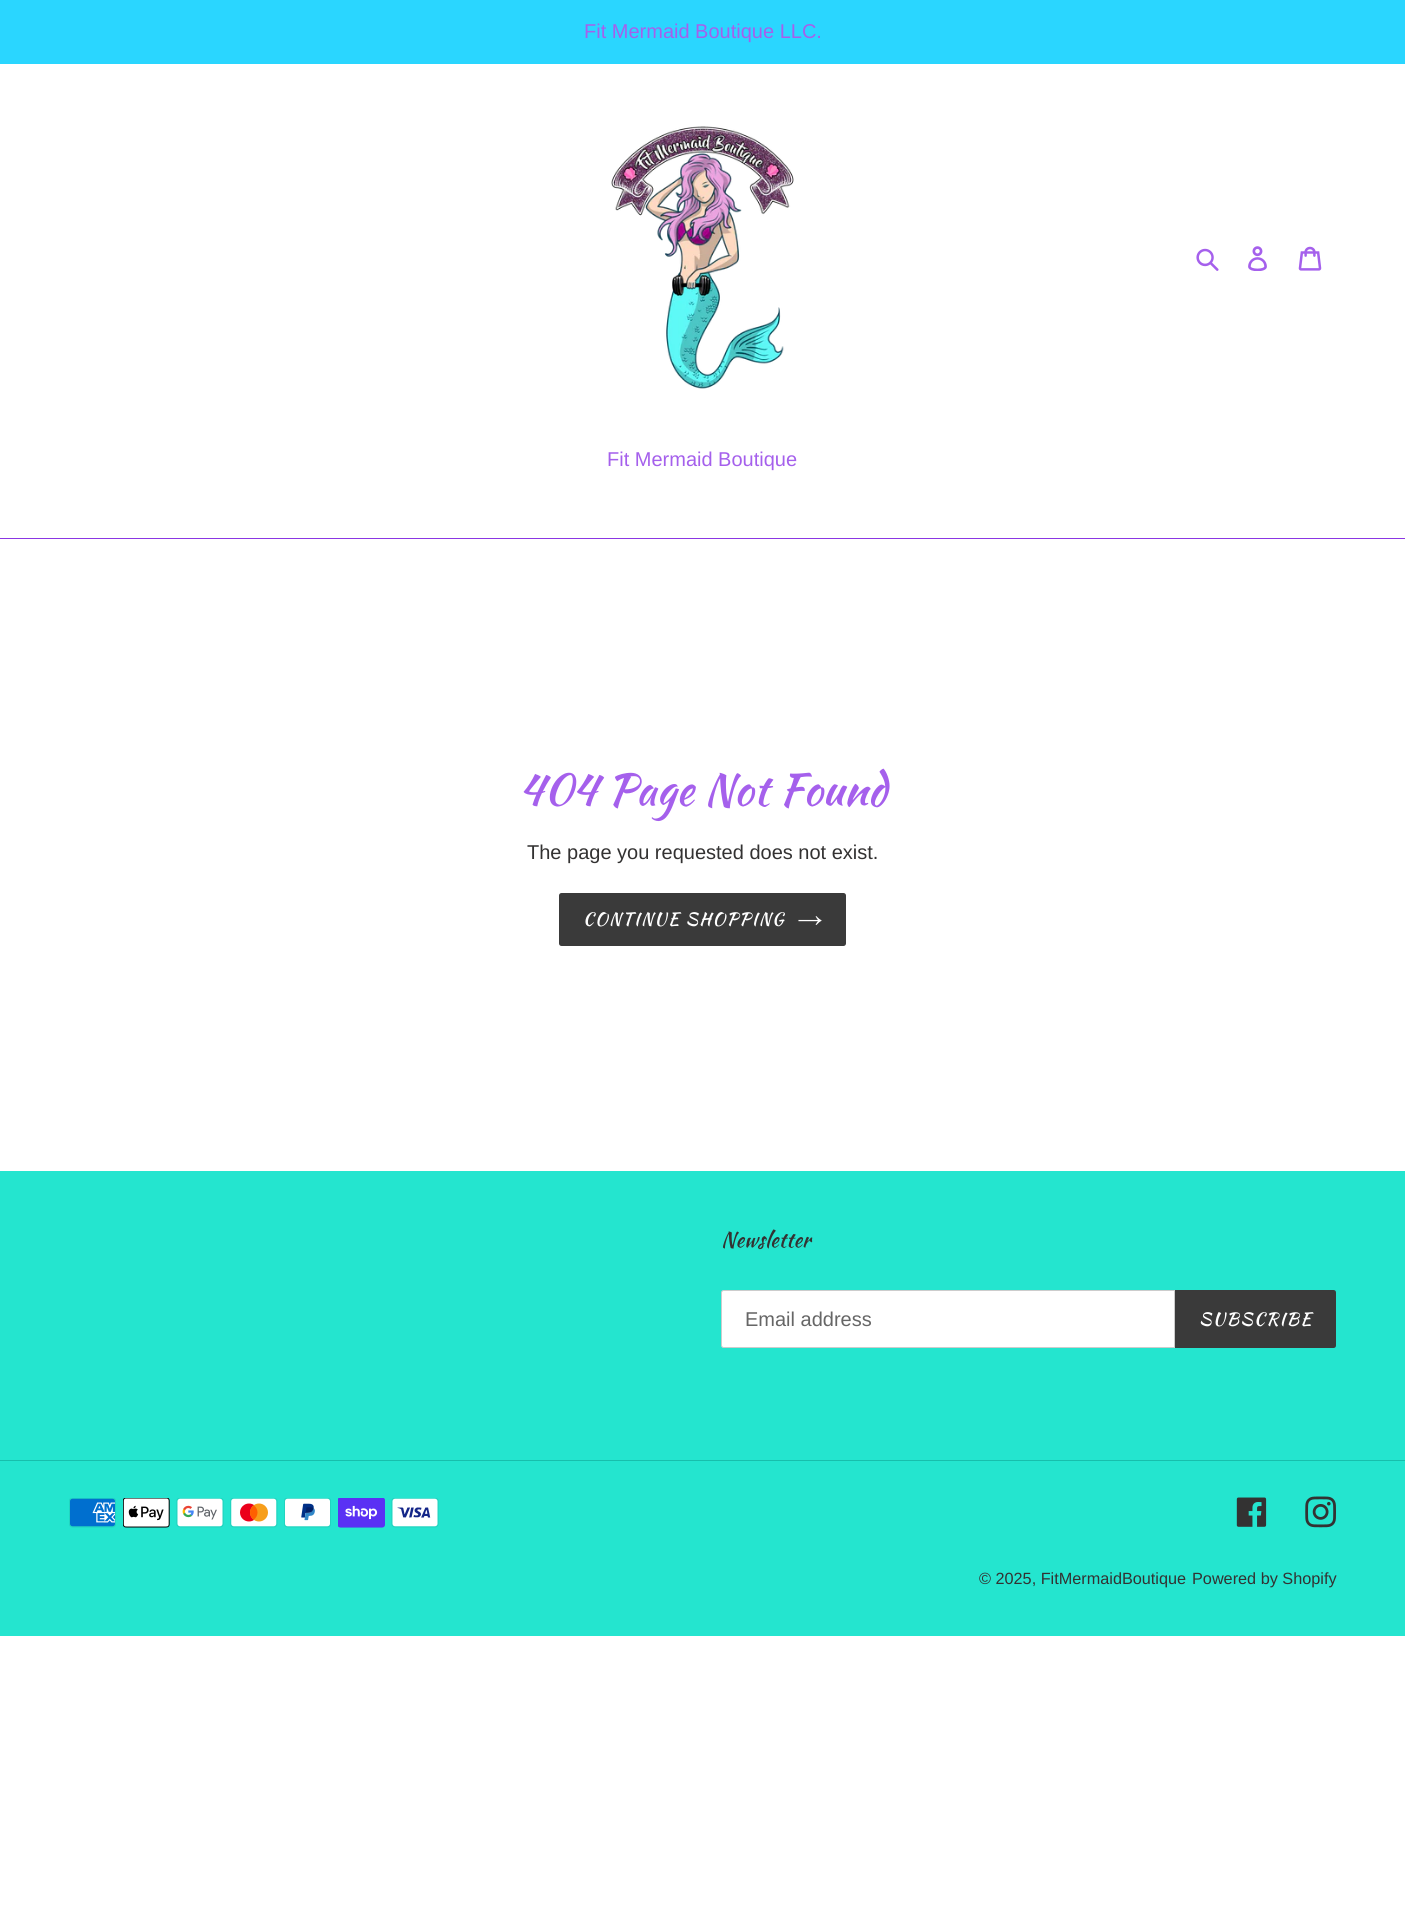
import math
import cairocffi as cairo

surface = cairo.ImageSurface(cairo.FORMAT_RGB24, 1405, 1920)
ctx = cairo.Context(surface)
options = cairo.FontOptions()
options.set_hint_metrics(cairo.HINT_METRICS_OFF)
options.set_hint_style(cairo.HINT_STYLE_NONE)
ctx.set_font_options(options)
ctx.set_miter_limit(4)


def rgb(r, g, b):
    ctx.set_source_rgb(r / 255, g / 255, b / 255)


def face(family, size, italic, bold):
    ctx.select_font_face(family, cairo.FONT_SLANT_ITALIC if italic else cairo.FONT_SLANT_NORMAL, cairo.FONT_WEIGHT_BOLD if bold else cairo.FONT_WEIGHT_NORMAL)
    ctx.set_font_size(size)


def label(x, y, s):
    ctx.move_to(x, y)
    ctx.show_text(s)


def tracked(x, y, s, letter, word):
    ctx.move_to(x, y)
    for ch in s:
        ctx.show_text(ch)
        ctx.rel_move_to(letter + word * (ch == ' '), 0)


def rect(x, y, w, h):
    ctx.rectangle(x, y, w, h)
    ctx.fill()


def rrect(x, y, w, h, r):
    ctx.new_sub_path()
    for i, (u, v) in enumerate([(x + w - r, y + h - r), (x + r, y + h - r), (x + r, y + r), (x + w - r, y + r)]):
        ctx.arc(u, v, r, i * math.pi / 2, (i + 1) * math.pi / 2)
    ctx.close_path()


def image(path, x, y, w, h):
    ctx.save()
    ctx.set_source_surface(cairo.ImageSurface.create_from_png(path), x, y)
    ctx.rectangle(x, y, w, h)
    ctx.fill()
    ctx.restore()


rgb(255, 255, 255)
ctx.paint()
rgb(42, 214, 255)
rect(0, 0, 1405, 64)
face('Liberation Sans', 20, 0, 0)
rgb(165, 96, 236)
label(584, 38, 'Fit Mermaid Boutique LLC.')
image('image0.png', 611, 126, 183, 263)
image('image1.png', 1196, 248, 23, 23)
image('image2.png', 1248, 246, 19, 25)
image('image3.png', 1298, 246, 24, 25)
rgb(139, 54, 227)
rect(0, 538, 1405, 1)
rgb(165, 96, 236)
label(607, 466, 'Fit Mermaid Boutique')
face('Kaushan Script', 43.75, 0, 0)
label(519, 805, '404 Page Not Found')
face('Liberation Sans', 20, 0, 0)
rgb(51, 50, 50)
label(527, 859, 'The page you requested does not exist.')
rgb(58, 58, 58)
rrect(559, 893, 287, 53, 2.5)
ctx.fill()
face('Kaushan Script', 17.5, 0, 0)
rgb(255, 255, 255)
tracked(583, 925, 'CONTINUE SHOPPING', 1.4, 0)
image('image4.png', 798, 916, 24, 9)
rgb(36, 229, 207)
rect(0, 1171, 1405, 465)
face('Kaushan Script', 21.25, 0, 0)
rgb(51, 50, 50)
label(721, 1247, 'Newsletter')
rgb(255, 255, 255)
ctx.new_path()
ctx.move_to(723.5, 1290.5)
ctx.line_to(1174.5, 1290.5)
ctx.line_to(1174.5, 1347.5)
ctx.line_to(723.5, 1347.5)
ctx.curve_to(722.5, 1347.5, 721.5, 1346.5, 721.5, 1345.5)
ctx.line_to(721.5, 1292.5)
ctx.curve_to(721.5, 1291.5, 722.5, 1290.5, 723.5, 1290.5)
ctx.close_path()
ctx.fill_preserve()
rgb(204, 204, 204)
ctx.set_line_width(1)
ctx.stroke()
face('Liberation Sans', 20, 0, 0)
rgb(102, 102, 102)
label(745, 1326, 'Email address')
rgb(58, 58, 58)
ctx.new_path()
ctx.move_to(1175, 1290)
ctx.line_to(1333.5, 1290)
ctx.curve_to(1335, 1290, 1336, 1291, 1336, 1292.5)
ctx.line_to(1336, 1345.5)
ctx.curve_to(1336, 1347, 1335, 1348, 1333.5, 1348)
ctx.line_to(1175, 1348)
ctx.close_path()
ctx.fill()
face('Kaushan Script', 17.5, 0, 0)
rgb(255, 255, 255)
tracked(1199, 1325, 'SUBSCRIBE', 1.4, 0)
rgb(23, 191, 172)
rect(0, 1460, 1405, 1)
image('image5.png', 69, 1498, 47, 30)
image('image6.png', 123, 1498, 47, 30)
image('image7.png', 176, 1498, 48, 30)
image('image8.png', 230, 1498, 48, 30)
image('image9.png', 284, 1498, 47, 30)
image('image10.png', 338, 1498, 47, 30)
image('image11.png', 391, 1498, 48, 30)
image('image12.png', 1236, 1497, 31, 30)
image('image13.png', 1305, 1496, 31, 32)
face('Liberation Sans', 16.25, 0, 0)
rgb(51, 50, 50)
label(979, 1584, '© 2025, FitMermaidBoutique')
label(1192, 1584, 'Powered by Shopify')
surface.write_to_png('render.png')
